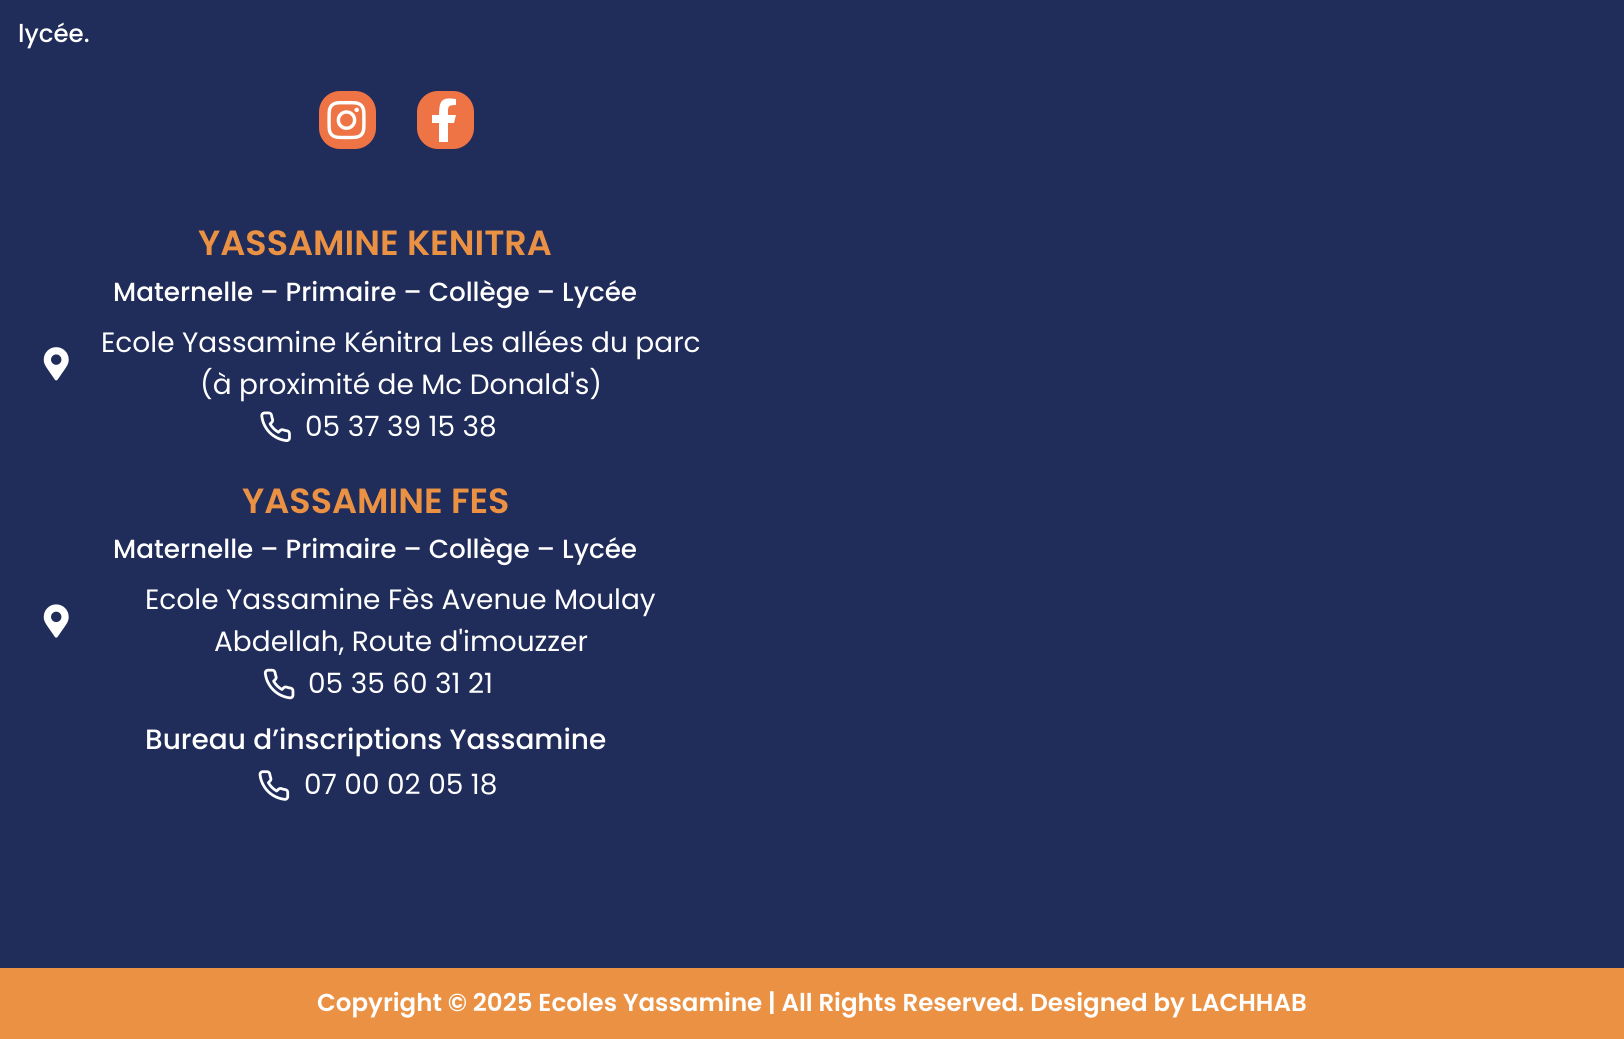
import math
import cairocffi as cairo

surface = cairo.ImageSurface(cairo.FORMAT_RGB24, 1624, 1039)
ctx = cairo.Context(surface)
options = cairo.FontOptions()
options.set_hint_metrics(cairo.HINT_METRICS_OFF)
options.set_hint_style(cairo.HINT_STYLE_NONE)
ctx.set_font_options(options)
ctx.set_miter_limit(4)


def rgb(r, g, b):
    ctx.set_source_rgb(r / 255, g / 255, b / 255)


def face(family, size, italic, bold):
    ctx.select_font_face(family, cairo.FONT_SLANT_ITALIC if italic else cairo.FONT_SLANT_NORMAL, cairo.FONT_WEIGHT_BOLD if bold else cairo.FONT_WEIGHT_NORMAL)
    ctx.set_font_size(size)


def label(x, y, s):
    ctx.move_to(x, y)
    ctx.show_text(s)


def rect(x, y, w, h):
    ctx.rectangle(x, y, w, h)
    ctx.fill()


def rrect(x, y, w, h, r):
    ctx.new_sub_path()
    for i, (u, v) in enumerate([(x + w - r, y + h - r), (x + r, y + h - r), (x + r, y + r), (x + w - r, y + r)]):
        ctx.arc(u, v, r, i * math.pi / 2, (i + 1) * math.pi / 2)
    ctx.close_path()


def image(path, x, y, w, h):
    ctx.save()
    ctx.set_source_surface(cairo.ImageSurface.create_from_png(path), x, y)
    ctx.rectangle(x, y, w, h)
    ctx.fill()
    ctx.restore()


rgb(32, 44, 89)
ctx.paint()
face('Poppins Medium', 24.5, 0, 0)
rgb(255, 255, 255)
label(18, 42, 'lycée.')
rgb(238, 116, 69)
rrect(319, 91, 57, 58, 21)
ctx.fill()
image('image0.png', 327, 100, 39, 40)
rrect(417, 91, 57, 58, 21)
ctx.fill()
rgb(255, 255, 255)
ctx.new_path()
ctx.move_to(454, 123)
ctx.line_to(448, 123)
ctx.line_to(448, 142)
ctx.line_to(439, 142)
ctx.line_to(439, 123)
ctx.line_to(432, 123)
ctx.line_to(432, 115)
ctx.line_to(439, 115)
ctx.curve_to(439, 100, 442, 97, 456, 99)
ctx.line_to(456, 105)
ctx.curve_to(447, 105, 448, 107, 448, 115)
ctx.line_to(456, 115)
ctx.close_path()
ctx.fill()
face('Poppins SemiBold', 35, 0, 0)
rgb(235, 145, 68)
label(198, 255, 'YASSAMINE KENITRA')
face('Poppins Medium', 26.25, 0, 0)
rgb(255, 255, 255)
label(113, 301, 'Maternelle – Primaire – Collège – Lycée')
image('image1.png', 43, 347, 26, 34)
face('Poppins', 28, 0, 0)
label(101, 352, 'Ecole Yassamine Kénitra Les allées du parc')
label(200, 394, '(à proximité de Mc Donald\'s)')
image('image2.png', 260, 411, 31, 31)
label(305, 436, '05 37 39 15 38')
face('Poppins SemiBold', 35, 0, 0)
rgb(235, 145, 68)
label(242, 513, 'YASSAMINE FES')
face('Poppins Medium', 26.25, 0, 0)
rgb(255, 255, 255)
label(113, 558, 'Maternelle – Primaire – Collège – Lycée')
image('image3.png', 43, 604, 26, 34)
face('Poppins', 28, 0, 0)
label(145, 609, 'Ecole Yassamine Fès Avenue Moulay')
label(214, 651, 'Abdellah, Route d\'imouzzer')
image('image4.png', 263, 668, 32, 32)
label(308, 693, '05 35 60 31 21')
face('Poppins Medium', 28, 0, 0)
label(145, 749, 'Bureau d’inscriptions Yassamine')
image('image5.png', 258, 770, 32, 31)
face('Poppins', 28, 0, 0)
label(304, 794, '07 00 02 05 18')
rgb(235, 145, 68)
rect(0, 968, 1624, 71)
face('Poppins SemiBold', 24.5, 0, 0)
rgb(255, 255, 255)
label(317, 1011, 'Copyright © 2025 Ecoles Yassamine | All Rights Reserved. Designed by LACHHAB')
surface.write_to_png('render.png')
